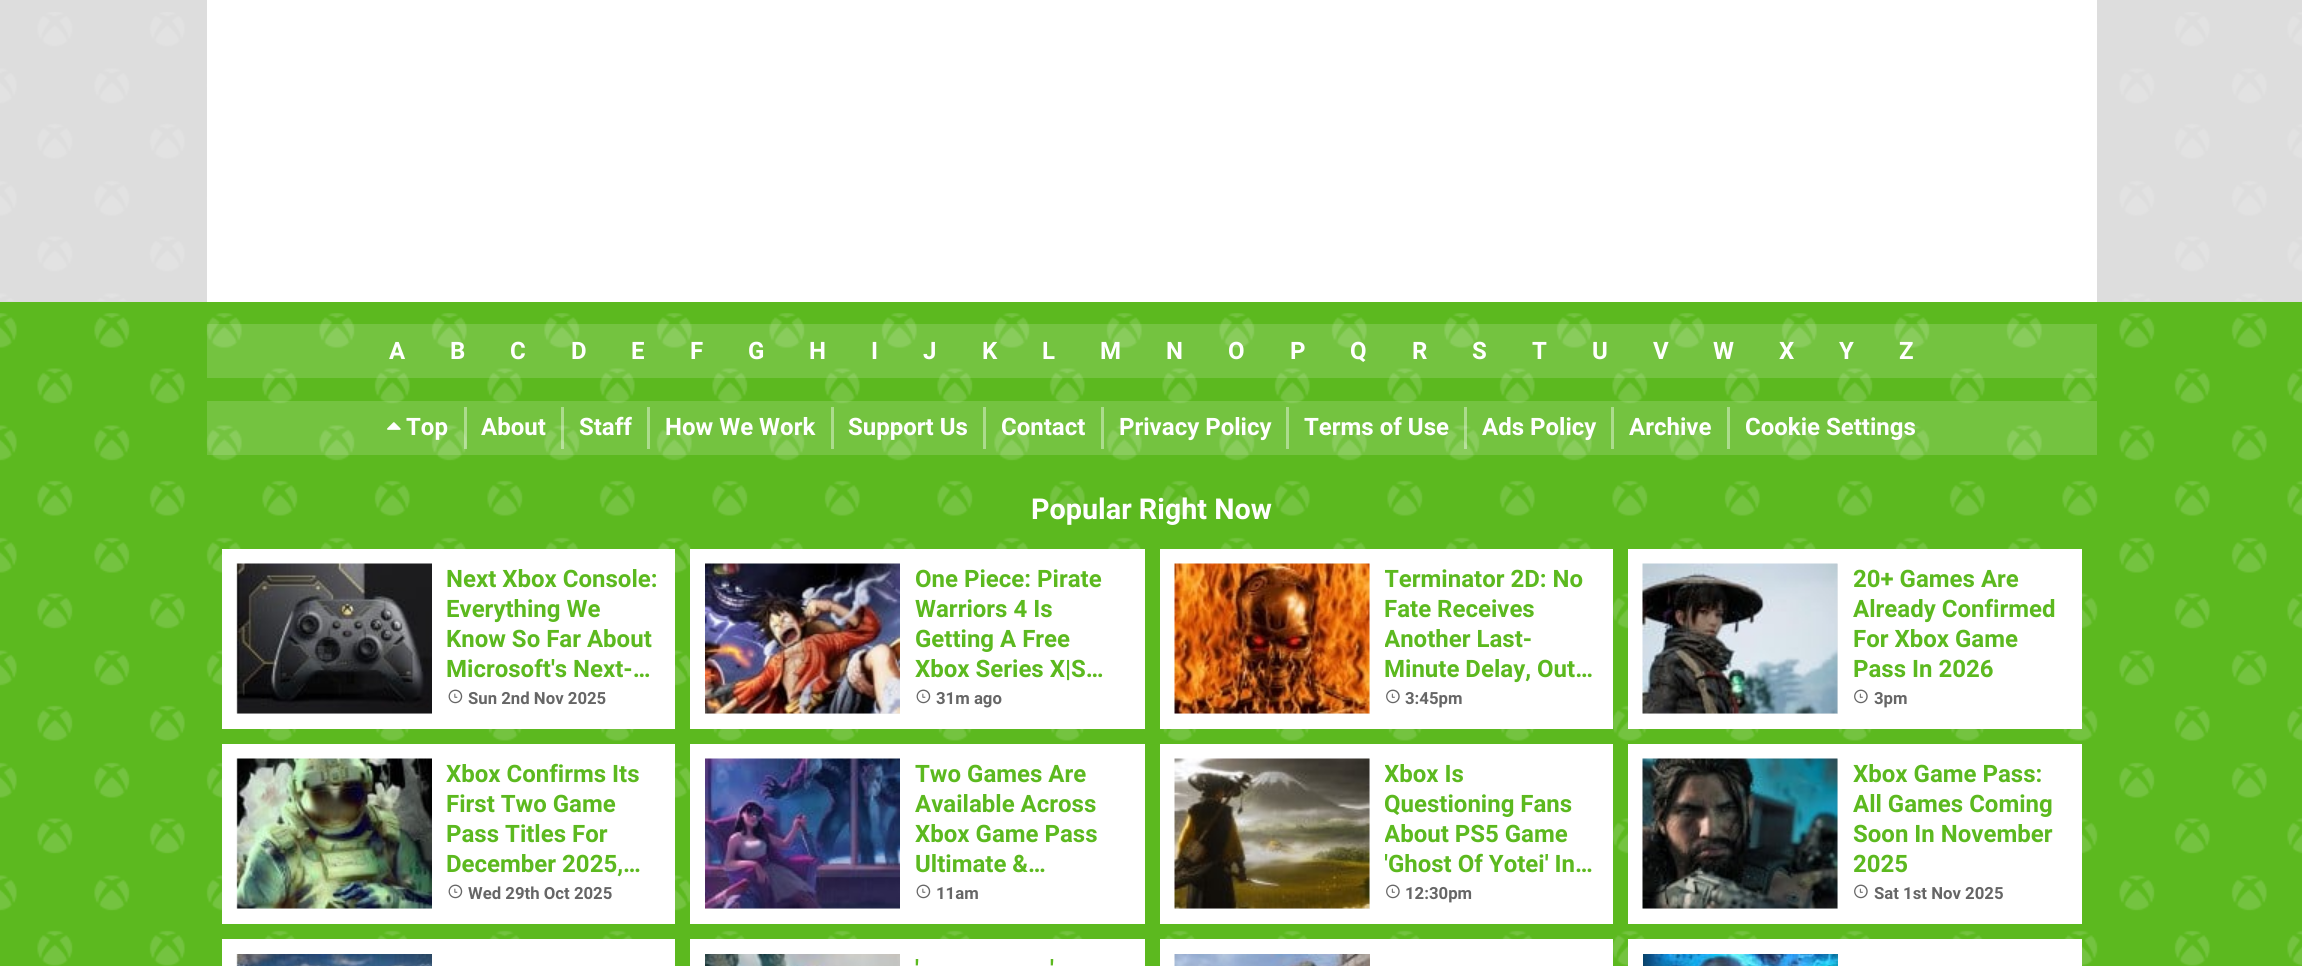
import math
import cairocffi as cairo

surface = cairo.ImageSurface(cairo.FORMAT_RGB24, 2302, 966)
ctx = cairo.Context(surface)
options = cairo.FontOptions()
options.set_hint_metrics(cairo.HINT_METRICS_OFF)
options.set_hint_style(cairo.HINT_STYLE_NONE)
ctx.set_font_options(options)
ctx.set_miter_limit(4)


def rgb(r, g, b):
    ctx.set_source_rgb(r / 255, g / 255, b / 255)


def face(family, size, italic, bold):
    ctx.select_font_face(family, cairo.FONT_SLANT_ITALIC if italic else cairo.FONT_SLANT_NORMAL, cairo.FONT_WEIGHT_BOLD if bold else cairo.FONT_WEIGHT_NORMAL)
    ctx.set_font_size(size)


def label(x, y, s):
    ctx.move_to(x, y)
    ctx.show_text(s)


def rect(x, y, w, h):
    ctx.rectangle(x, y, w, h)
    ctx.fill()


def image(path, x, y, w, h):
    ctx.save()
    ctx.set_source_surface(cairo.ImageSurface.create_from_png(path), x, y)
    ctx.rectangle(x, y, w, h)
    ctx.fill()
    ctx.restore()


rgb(92, 185, 31)
ctx.paint()
rgb(221, 221, 221)
rect(0, 0, 2302, 302)
image('image0.png', 0, 12, 2302, 289)
rgb(255, 255, 255)
rect(207, 0, 1890, 302)
image('image1.png', 0, 313, 2302, 653)
ctx.set_source_rgba(1, 1, 1, 0.15)
rect(207, 324, 1890, 54)
face('Roboto', 24, 0, 1)
rgb(255, 255, 255)
label(389, 359, 'A')
label(450, 359, 'B')
label(510, 359, 'C')
label(571, 359, 'D')
label(631, 359, 'E')
label(690, 359, 'F')
label(748, 359, 'G')
label(809, 359, 'H')
label(871, 359, 'I')
label(923, 359, 'J')
label(982, 359, 'K')
label(1042, 359, 'L')
label(1100, 359, 'M')
label(1166, 359, 'N')
label(1228, 359, 'O')
label(1290, 359, 'P')
label(1350, 359, 'Q')
label(1412, 359, 'R')
label(1472, 359, 'S')
label(1532, 359, 'T')
label(1592, 359, 'U')
label(1653, 359, 'V')
label(1713, 359, 'W')
label(1779, 359, 'X')
label(1839, 359, 'Y')
label(1899, 359, 'Z')
ctx.set_source_rgba(1, 1, 1, 0.15)
rect(207, 401, 1890, 54)
image('image2.png', 387, 422, 14, 8)
rgb(255, 255, 255)
label(406, 435, 'Top')
ctx.set_source_rgba(1, 1, 1, 0.4)
rect(464, 407, 3, 42)
rgb(255, 255, 255)
label(481, 435, 'About')
ctx.set_source_rgba(1, 1, 1, 0.4)
rect(561, 407, 3, 42)
rgb(255, 255, 255)
label(579, 435, 'Staff')
rgb(172, 219, 141)
rect(647, 407, 3, 42)
rgb(255, 255, 255)
label(665, 435, 'How We Work')
rgb(172, 219, 141)
rect(831, 407, 3, 42)
rgb(255, 255, 255)
label(848, 435, 'Support Us')
rgb(172, 219, 141)
rect(983, 407, 3, 42)
rgb(255, 255, 255)
label(1001, 435, 'Contact')
rgb(172, 219, 141)
rect(1101, 407, 3, 42)
rgb(255, 255, 255)
label(1119, 435, 'Privacy Policy')
rgb(172, 219, 141)
rect(1286, 407, 3, 42)
rgb(255, 255, 255)
label(1304, 435, 'Terms of Use')
ctx.set_source_rgba(1, 1, 1, 0.4)
rect(1464, 407, 3, 42)
rgb(255, 255, 255)
label(1482, 435, 'Ads Policy')
rgb(172, 219, 141)
rect(1611, 407, 3, 42)
rgb(255, 255, 255)
label(1629, 435, 'Archive')
rgb(172, 219, 141)
rect(1727, 407, 3, 42)
rgb(255, 255, 255)
label(1745, 435, 'Cookie Settings')
face('Roboto', 28.75, 0, 1)
label(1031, 519, 'Popular Right Now')
rect(222, 549, 453, 180)
rgb(238, 238, 238)
rect(237, 564, 195, 150)
image('image3.png', 236, 563, 196, 151)
face('Roboto', 24, 0, 1)
rgb(92, 185, 31)
label(446, 587, 'Next Xbox Console:')
label(446, 617, 'Everything We')
label(446, 647, 'Know So Far About')
label(446, 677, 'Microsoft\'s Next-…')
image('image4.png', 448, 689, 15, 15)
face('Roboto', 16.75, 0, 1)
rgb(102, 102, 102)
label(468, 704, 'Sun 2nd Nov 2025')
rgb(255, 255, 255)
rect(690, 549, 455, 180)
rgb(238, 238, 238)
rect(705, 713, 195, 1)
image('image5.png', 705, 563, 195, 151)
face('Roboto', 24, 0, 1)
rgb(92, 185, 31)
label(915, 587, 'One Piece: Pirate')
label(915, 617, 'Warriors 4 Is')
label(915, 647, 'Getting A Free')
label(915, 677, 'Xbox Series X|S…')
image('image4.png', 916, 689, 15, 15)
face('Roboto', 16.75, 0, 1)
rgb(102, 102, 102)
label(936, 704, '31m ago')
rgb(255, 255, 255)
rect(1160, 549, 453, 180)
rgb(238, 238, 238)
rect(1175, 564, 195, 150)
image('image6.png', 1174, 563, 196, 151)
ctx.save()
ctx.rectangle(1385, 564, 213, 120)
ctx.clip()
face('Roboto', 24, 0, 1)
rgb(92, 185, 31)
label(1384, 587, 'Terminator 2D: No')
ctx.restore()
face('Roboto', 24, 0, 1)
rgb(92, 185, 31)
label(1384, 617, 'Fate Receives')
ctx.save()
ctx.rectangle(1385, 564, 213, 120)
ctx.clip()
label(1384, 647, 'Another Last-')
ctx.restore()
label(1384, 677, 'Minute Delay, Out…')
image('image7.png', 1386, 689, 14, 15)
face('Roboto', 16.75, 0, 1)
rgb(102, 102, 102)
label(1405, 704, '3:45pm')
rgb(255, 255, 255)
rect(1628, 549, 454, 180)
rgb(238, 238, 238)
rect(1643, 564, 195, 150)
image('image8.png', 1642, 563, 196, 151)
face('Roboto', 24, 0, 1)
rgb(92, 185, 31)
label(1853, 587, '20+ Games Are')
label(1853, 617, 'Already Confirmed')
label(1853, 647, 'For Xbox Game')
label(1853, 677, 'Pass In 2026')
image('image7.png', 1854, 689, 14, 15)
face('Roboto', 16.75, 0, 1)
rgb(102, 102, 102)
label(1874, 704, '3pm')
rgb(255, 255, 255)
rect(222, 744, 453, 180)
rgb(238, 238, 238)
rect(237, 759, 195, 150)
image('image9.png', 236, 758, 196, 151)
face('Roboto', 24, 0, 1)
rgb(92, 185, 31)
label(446, 782, 'Xbox Confirms Its')
label(446, 812, 'First Two Game')
label(446, 842, 'Pass Titles For')
label(446, 872, 'December 2025,…')
image('image4.png', 448, 884, 15, 15)
face('Roboto', 16.75, 0, 1)
rgb(102, 102, 102)
label(468, 899, 'Wed 29th Oct 2025')
rgb(255, 255, 255)
rect(690, 744, 455, 180)
rgb(238, 238, 238)
rect(705, 908, 195, 1)
image('image10.png', 705, 758, 195, 151)
face('Roboto', 24, 0, 1)
rgb(92, 185, 31)
label(915, 782, 'Two Games Are')
label(915, 812, 'Available Across')
label(915, 842, 'Xbox Game Pass')
label(915, 872, 'Ultimate &…')
image('image4.png', 916, 884, 15, 15)
face('Roboto', 16.75, 0, 1)
rgb(102, 102, 102)
label(936, 899, '11am')
rgb(255, 255, 255)
rect(1160, 744, 453, 180)
rgb(238, 238, 238)
rect(1175, 759, 195, 150)
image('image11.png', 1174, 758, 196, 151)
ctx.save()
ctx.rectangle(1385, 759, 213, 120)
ctx.clip()
face('Roboto', 24, 0, 1)
rgb(92, 185, 31)
label(1384, 782, 'Xbox Is')
label(1384, 812, 'Questioning Fans')
label(1384, 842, 'About PS5 Game')
label(1384, 872, '\'Ghost Of Yotei\' In…')
ctx.restore()
image('image7.png', 1386, 884, 14, 15)
rgb(102, 102, 102)
label(1405, 899, '12:30pm')
rgb(255, 255, 255)
rect(1628, 744, 454, 180)
rgb(238, 238, 238)
rect(1643, 759, 195, 150)
image('image12.png', 1642, 758, 196, 151)
face('Roboto', 24, 0, 1)
rgb(92, 185, 31)
label(1853, 782, 'Xbox Game Pass:')
label(1853, 812, 'All Games Coming')
label(1853, 842, 'Soon In November')
label(1853, 872, '2025')
image('image7.png', 1854, 884, 14, 15)
face('Roboto', 16.75, 0, 1)
rgb(102, 102, 102)
label(1874, 899, 'Sat 1st Nov 2025')
rgb(255, 255, 255)
rect(222, 939, 453, 27)
image('image13.png', 236, 954, 196, 12)
rect(690, 939, 455, 27)
image('image14.png', 705, 954, 195, 12)
face('Roboto', 24, 0, 1)
rgb(92, 185, 31)
label(915, 977, '\'')
label(1050, 977, '\'')
rgb(255, 255, 255)
rect(1160, 939, 453, 27)
image('image15.png', 1174, 954, 196, 12)
rect(1628, 939, 454, 27)
image('image16.png', 1643, 954, 195, 12)
surface.write_to_png('render.png')
